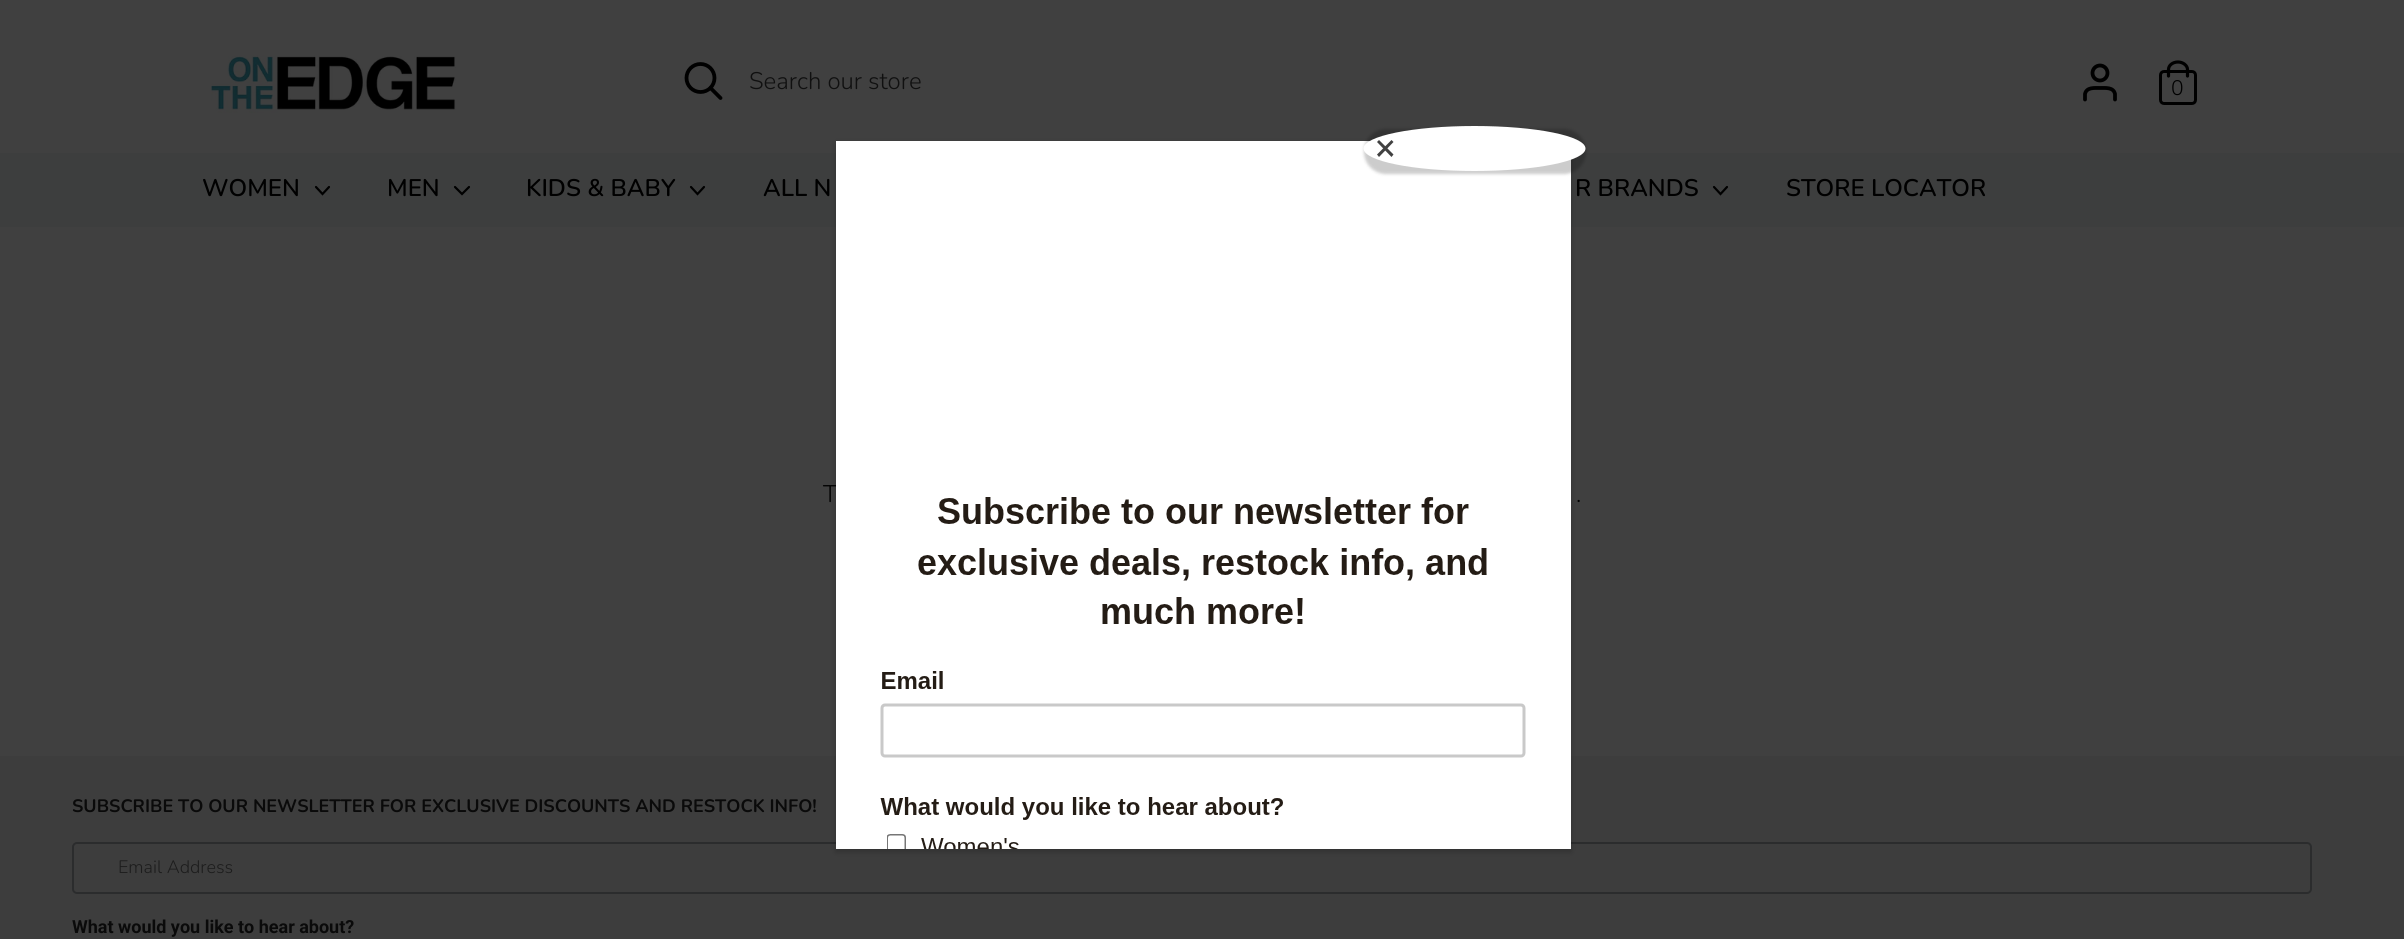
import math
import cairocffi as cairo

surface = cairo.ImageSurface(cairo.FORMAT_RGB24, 2404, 939)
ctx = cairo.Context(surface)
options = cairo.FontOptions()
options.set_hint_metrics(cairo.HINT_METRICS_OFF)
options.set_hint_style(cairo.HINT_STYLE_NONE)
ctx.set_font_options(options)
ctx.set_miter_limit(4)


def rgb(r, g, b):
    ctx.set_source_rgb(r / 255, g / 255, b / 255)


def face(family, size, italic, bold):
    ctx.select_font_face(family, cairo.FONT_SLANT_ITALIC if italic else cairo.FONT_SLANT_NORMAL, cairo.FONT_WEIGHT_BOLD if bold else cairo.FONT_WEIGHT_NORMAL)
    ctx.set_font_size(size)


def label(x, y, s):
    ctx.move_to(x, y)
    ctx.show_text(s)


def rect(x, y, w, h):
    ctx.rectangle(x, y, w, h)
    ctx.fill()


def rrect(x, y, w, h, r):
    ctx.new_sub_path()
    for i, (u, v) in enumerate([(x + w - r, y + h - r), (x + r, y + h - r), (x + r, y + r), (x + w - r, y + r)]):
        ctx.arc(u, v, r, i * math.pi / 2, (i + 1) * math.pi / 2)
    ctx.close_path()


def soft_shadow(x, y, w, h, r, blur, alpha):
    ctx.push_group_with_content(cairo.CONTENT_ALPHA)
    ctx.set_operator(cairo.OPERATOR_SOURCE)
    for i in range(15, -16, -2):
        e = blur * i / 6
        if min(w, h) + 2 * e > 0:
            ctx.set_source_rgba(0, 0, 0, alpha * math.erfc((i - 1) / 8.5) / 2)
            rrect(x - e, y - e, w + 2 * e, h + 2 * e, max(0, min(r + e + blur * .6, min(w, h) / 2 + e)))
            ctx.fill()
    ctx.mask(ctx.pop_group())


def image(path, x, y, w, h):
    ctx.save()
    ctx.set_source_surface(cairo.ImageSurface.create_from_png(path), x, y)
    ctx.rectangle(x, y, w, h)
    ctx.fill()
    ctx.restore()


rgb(64, 64, 64)
ctx.paint()
image('image0.png', 211, 55, 245, 58)
ctx.arc(700.5, 78, 14, 0, 2 * math.pi)
rgb(0, 0, 0)
ctx.set_line_width(3.8)
ctx.stroke()
ctx.new_path()
ctx.move_to(720.5, 98)
ctx.line_to(710.5, 88)
ctx.set_line_cap(cairo.LINE_CAP_ROUND)
ctx.stroke()
face('Nunito Light', 24, 0, 0)
rgb(16, 16, 16)
label(749, 89, 'Search our store')
ctx.new_path()
ctx.move_to(2115, 99.5)
ctx.line_to(2115, 94)
ctx.curve_to(2113.5, 87, 2105.5, 88, 2100, 88)
ctx.curve_to(2094.5, 88, 2086.5, 87, 2085, 94)
ctx.line_to(2085, 99.5)
rgb(0, 0, 0)
ctx.stroke()
ctx.arc(2100, 73, 7.5, 0, 2 * math.pi)
ctx.set_line_cap(cairo.LINE_CAP_BUTT)
ctx.stroke()
rrect(2160.5, 71.5, 35, 32, 3.5)
ctx.set_line_width(3)
ctx.stroke()
ctx.new_path()
ctx.move_to(2168.5, 76)
ctx.line_to(2168.5, 69.5)
ctx.curve_to(2168.5, 65.5, 2172.5, 62, 2178, 62)
ctx.curve_to(2183, 62, 2187.5, 65.5, 2187.5, 69.5)
ctx.line_to(2187.5, 76)
ctx.set_line_width(3.2)
ctx.set_line_cap(cairo.LINE_CAP_ROUND)
ctx.stroke()
face('Nunito Light', 21, 0, 0)
label(2171, 95, '0')
rgb(61, 62, 62)
rect(0, 153, 2404, 74)
face('Nunito SemiBold', 24, 0, 0)
rgb(0, 0, 0)
label(202, 196, 'WOMEN')
ctx.new_path()
ctx.move_to(316, 187)
ctx.line_to(322.5, 194)
ctx.line_to(329, 187)
ctx.set_line_width(2.2)
ctx.stroke()
label(387, 196, 'MEN')
ctx.new_path()
ctx.move_to(455, 187)
ctx.line_to(462, 194)
ctx.line_to(469, 187)
ctx.stroke()
label(526, 196, 'KIDS & BABY')
ctx.new_path()
ctx.move_to(691, 187)
ctx.line_to(697.5, 194)
ctx.line_to(704, 187)
ctx.stroke()
label(763, 196, 'ALL N')
label(1575, 196, 'R BRANDS')
ctx.new_path()
ctx.move_to(1714, 187)
ctx.line_to(1720.5, 194)
ctx.line_to(1727, 187)
ctx.stroke()
label(1786, 196, 'STORE LOCATOR')
rgb(61, 61, 61)
rect(0, 756, 2404, 183)
rrect(73, 843, 2238, 50, 4)
rgb(43, 44, 45)
ctx.set_line_width(2)
ctx.set_line_cap(cairo.LINE_CAP_BUTT)
ctx.stroke()
rgb(0, 0, 0)
soft_shadow(836, 144, 735, 708, 0, 3, 0.2)
face('Nunito Light', 24, 0, 0)
rgb(0, 0, 0)
label(823, 502, 'T')
image('image1.png', 836, 141, 735, 708)
rgb(0, 0, 0)
soft_shadow(1364, 129, 222, 45, 22.5, 1.5, 0.2)
rgb(255, 255, 255)
ctx.new_path()
ctx.move_to(1474.5, 126)
ctx.curve_to(1536, 126, 1585.5, 136, 1585.5, 148.5)
ctx.curve_to(1585.5, 161, 1536, 171, 1474.5, 171)
ctx.curve_to(1413, 171, 1363.5, 161, 1363.5, 148.5)
ctx.curve_to(1363.5, 136, 1413, 126, 1474.5, 126)
ctx.close_path()
ctx.fill()
rgb(65, 65, 65)
ctx.new_path()
ctx.move_to(1391.5, 140)
ctx.line_to(1393.5, 142)
ctx.line_to(1379, 157)
ctx.line_to(1377, 154.5)
ctx.close_path()
ctx.fill()
ctx.new_path()
ctx.move_to(1377, 142)
ctx.line_to(1379, 140)
ctx.line_to(1393.5, 154.5)
ctx.line_to(1391.5, 157)
ctx.close_path()
ctx.fill()
rgb(0, 0, 0)
label(1576, 502, '.')
face('Nunito', 18, 0, 1)
rgb(10, 10, 10)
label(72, 812, 'SUBSCRIBE TO OUR NEWSLETTER FOR EXCLUSIVE DISCOUNTS AND RESTOCK INFO!')
face('Nunito Light', 18, 0, 0)
rgb(29, 29, 29)
label(118, 873, 'Email Address')
face('Roboto', 18, 0, 1)
rgb(10, 10, 10)
label(72, 933, 'What would you like to hear about?')
surface.write_to_png('render.png')
